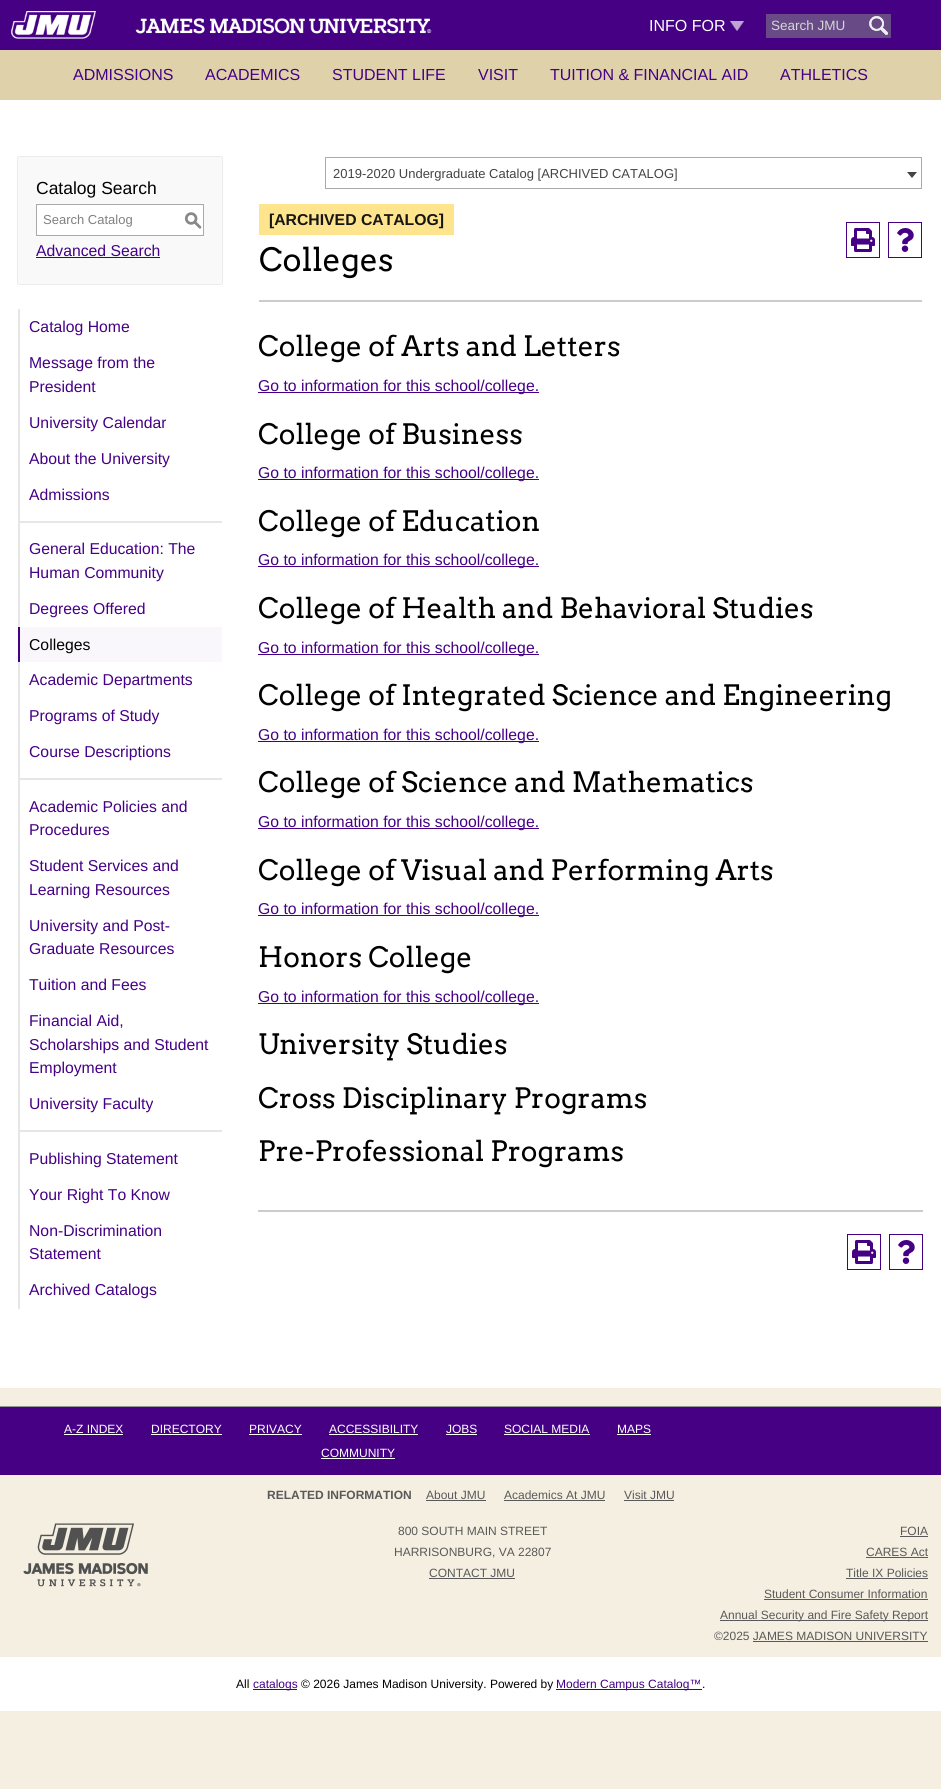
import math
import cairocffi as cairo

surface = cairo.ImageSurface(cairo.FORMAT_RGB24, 941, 1789)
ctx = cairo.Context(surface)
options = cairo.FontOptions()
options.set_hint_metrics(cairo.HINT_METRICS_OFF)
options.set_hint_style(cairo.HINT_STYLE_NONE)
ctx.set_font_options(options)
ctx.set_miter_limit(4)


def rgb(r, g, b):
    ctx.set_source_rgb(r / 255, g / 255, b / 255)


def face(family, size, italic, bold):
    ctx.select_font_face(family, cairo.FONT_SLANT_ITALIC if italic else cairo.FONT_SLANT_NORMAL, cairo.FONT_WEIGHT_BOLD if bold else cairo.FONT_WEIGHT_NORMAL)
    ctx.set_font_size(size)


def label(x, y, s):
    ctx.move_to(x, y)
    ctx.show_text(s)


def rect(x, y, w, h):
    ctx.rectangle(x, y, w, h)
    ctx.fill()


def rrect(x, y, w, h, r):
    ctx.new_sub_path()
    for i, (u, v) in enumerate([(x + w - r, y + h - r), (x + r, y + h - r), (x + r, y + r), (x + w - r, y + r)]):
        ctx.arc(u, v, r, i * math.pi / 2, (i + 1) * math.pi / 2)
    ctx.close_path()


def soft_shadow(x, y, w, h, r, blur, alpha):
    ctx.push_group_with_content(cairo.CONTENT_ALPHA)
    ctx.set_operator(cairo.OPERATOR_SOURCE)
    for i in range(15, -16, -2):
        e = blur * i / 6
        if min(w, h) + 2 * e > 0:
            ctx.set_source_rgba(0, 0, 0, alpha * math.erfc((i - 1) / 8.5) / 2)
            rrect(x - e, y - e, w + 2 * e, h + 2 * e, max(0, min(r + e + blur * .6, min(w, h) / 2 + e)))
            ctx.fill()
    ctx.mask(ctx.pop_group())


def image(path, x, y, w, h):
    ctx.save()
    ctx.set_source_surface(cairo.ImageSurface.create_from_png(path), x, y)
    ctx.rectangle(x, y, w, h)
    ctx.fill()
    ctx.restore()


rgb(244, 239, 225)
ctx.paint()
rgb(69, 0, 132)
rect(0, 0, 941, 50)
image('image0.png', 10, 11, 422, 28)
face('Liberation Sans', 16, 0, 0)
rgb(255, 255, 255)
label(649, 31, 'INFO FOR')
image('image1.png', 730, 21, 14, 10)
rgb(104, 75, 134)
rect(766, 14, 125, 24)
face('Liberation Sans', 13.5, 0, 0)
rgb(214, 214, 214)
label(771, 30, 'Search JMU')
image('image2.png', 869, 16, 19, 19)
rgb(223, 210, 170)
rect(0, 50, 941, 50)
face('Liberation Sans', 16, 0, 0)
rgb(69, 0, 133)
label(73, 80, 'ADMISSIONS')
label(205, 80, 'ACADEMICS')
label(332, 80, 'STUDENT LIFE')
label(478, 80, 'VISIT')
label(550, 80, 'TUITION & FINANCIAL AID')
label(780, 80, 'ATHLETICS')
rgb(255, 255, 255)
rect(0, 100, 941, 1288)
ctx.rectangle(325.5, 157.5, 596, 31)
rgb(170, 170, 170)
ctx.set_line_width(1)
ctx.stroke()
face('Liberation Sans', 13, 0, 0)
rgb(68, 68, 68)
label(333, 178, '2019-2020 Undergraduate Catalog [ARCHIVED CATALOG]')
ctx.new_path()
ctx.move_to(907, 172)
ctx.line_to(917, 172)
ctx.line_to(912, 178)
ctx.close_path()
ctx.fill()
rgb(0, 0, 0)
soft_shadow(18, 157, 204, 127, 0, 0.5, 0.3)
rgb(249, 249, 249)
rect(18, 157, 204, 127)
face('Liberation Sans', 17.5, 0, 0)
rgb(0, 0, 0)
label(36, 194, 'Catalog Search')
rgb(255, 255, 255)
ctx.rectangle(36.5, 204.5, 167, 31)
ctx.fill_preserve()
rgb(170, 170, 170)
ctx.stroke()
face('Liberation Sans', 13, 0, 0)
rgb(128, 128, 128)
label(43, 224, 'Search Catalog')
face('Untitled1 Medium', 18, 0, 0)
rgb(136, 136, 136)
label(184, 226, 'S')
face('Liberation Sans', 15.75, 0, 0)
rgb(69, 0, 133)
label(36, 256, 'Advanced Search')
rect(36, 257, 124, 1)
rgb(230, 230, 230)
rect(18, 309, 2, 1000)
rgb(69, 0, 133)
label(29, 332, 'Catalog Home')
label(29, 368, 'Message from the')
label(29, 392, 'President')
label(29, 428, 'University Calendar')
label(29, 464, 'About the University')
label(29, 500, 'Admissions')
rgb(230, 230, 230)
rect(20, 521, 202, 2)
rgb(69, 0, 133)
label(29, 554, 'General Education: The')
label(29, 578, 'Human Community')
label(29, 614, 'Degrees Offered')
rgb(249, 247, 251)
rect(20, 627, 202, 35)
rgb(69, 0, 132)
rect(18, 627, 2, 35)
rgb(0, 0, 0)
label(29, 650, 'Colleges')
rgb(69, 0, 133)
label(29, 685, 'Academic Departments')
label(29, 721, 'Programs of Study')
label(29, 757, 'Course Descriptions')
rgb(230, 230, 230)
rect(20, 778, 202, 2)
rgb(69, 0, 133)
label(29, 812, 'Academic Policies and')
label(29, 835, 'Procedures')
label(29, 871, 'Student Services and')
label(29, 895, 'Learning Resources')
label(29, 931, 'University and Post-')
label(29, 954, 'Graduate Resources')
label(29, 990, 'Tuition and Fees')
label(29, 1026, 'Financial Aid,')
label(29, 1050, 'Scholarships and Student')
label(29, 1073, 'Employment')
label(29, 1109, 'University Faculty')
rgb(230, 230, 230)
rect(20, 1130, 202, 2)
rgb(69, 0, 133)
label(29, 1164, 'Publishing Statement')
label(29, 1200, 'Your Right To Know')
label(29, 1236, 'Non-Discrimination')
label(29, 1259, 'Statement')
label(29, 1295, 'Archived Catalogs')
rgb(255, 228, 142)
rect(259, 204, 195, 31)
face('Liberation Sans', 15.75, 0, 1)
rgb(21, 21, 21)
label(269, 225, '[ARCHIVED CATALOG]')
ctx.rectangle(846.5, 222.5, 33, 35)
rgb(69, 0, 132)
ctx.stroke()
image('image3.png', 851, 228, 24, 24)
ctx.rectangle(888.5, 222.5, 33, 35)
ctx.stroke()
image('image4.png', 897, 228, 17, 24)
face('Arvo', 32, 0, 0)
rgb(0, 0, 0)
label(259, 271, 'Colleges')
rgb(204, 204, 204)
rect(259, 300, 663, 2)
face('Arvo', 28, 0, 0)
rgb(0, 0, 0)
label(258, 356, 'College of Arts and Letters')
rgb(69, 0, 133)
rect(258, 392, 281, 1)
face('Liberation Sans', 15.75, 0, 0)
label(258, 391, 'Go to information for this school/college.')
face('Arvo', 28, 0, 0)
rgb(0, 0, 0)
label(258, 444, 'College of Business')
rgb(69, 0, 133)
rect(258, 479, 281, 1)
face('Liberation Sans', 15.75, 0, 0)
label(258, 478, 'Go to information for this school/college.')
face('Arvo', 28, 0, 0)
rgb(0, 0, 0)
label(258, 531, 'College of Education')
rgb(69, 0, 133)
rect(258, 566, 281, 1)
face('Liberation Sans', 15.75, 0, 0)
label(258, 565, 'Go to information for this school/college.')
face('Arvo', 28, 0, 0)
rgb(0, 0, 0)
label(258, 618, 'College of Health and Behavioral Studies')
rgb(69, 0, 133)
rect(258, 654, 281, 1)
face('Liberation Sans', 15.75, 0, 0)
label(258, 653, 'Go to information for this school/college.')
face('Arvo', 28, 0, 0)
rgb(0, 0, 0)
label(258, 705, 'College of Integrated Science and Engineering')
rgb(69, 0, 133)
rect(258, 741, 281, 1)
face('Liberation Sans', 15.75, 0, 0)
label(258, 740, 'Go to information for this school/college.')
face('Arvo', 28, 0, 0)
rgb(0, 0, 0)
label(258, 792, 'College of Science and Mathematics')
rgb(69, 0, 133)
rect(258, 828, 281, 1)
face('Liberation Sans', 15.75, 0, 0)
label(258, 827, 'Go to information for this school/college.')
face('Arvo', 28, 0, 0)
rgb(0, 0, 0)
label(258, 880, 'College of Visual and Performing Arts')
rgb(69, 0, 133)
rect(258, 915, 281, 1)
face('Liberation Sans', 15.75, 0, 0)
label(258, 914, 'Go to information for this school/college.')
face('Arvo', 28, 0, 0)
rgb(0, 0, 0)
label(258, 967, 'Honors College')
rgb(69, 0, 133)
rect(258, 1003, 281, 1)
face('Liberation Sans', 15.75, 0, 0)
label(258, 1002, 'Go to information for this school/college.')
face('Arvo', 28, 0, 0)
rgb(0, 0, 0)
label(258, 1054, 'University Studies')
label(258, 1108, 'Cross Disciplinary Programs')
label(258, 1161, 'Pre-Professional Programs')
rgb(204, 204, 204)
rect(258, 1210, 665, 2)
ctx.rectangle(847.5, 1234.5, 33, 35)
rgb(69, 0, 132)
ctx.stroke()
image('image3.png', 852, 1240, 24, 24)
ctx.rectangle(889.5, 1234.5, 33, 35)
ctx.stroke()
image('image4.png', 898, 1240, 17, 24)
rect(0, 1407, 941, 68)
rgb(149, 149, 149)
rect(0, 1406, 941, 1)
face('Liberation Sans', 12, 0, 0)
rgb(255, 255, 255)
label(64, 1433, 'A-Z INDEX')
rect(64, 1434, 59, 1)
label(151, 1433, 'DIRECTORY')
rect(151, 1434, 71, 1)
label(249, 1433, 'PRIVACY')
rect(249, 1434, 53, 1)
label(329, 1433, 'ACCESSIBILITY')
rect(329, 1434, 89, 1)
label(446, 1433, 'JOBS')
rect(446, 1434, 31, 1)
label(504, 1433, 'SOCIAL MEDIA')
rect(504, 1434, 86, 1)
label(617, 1433, 'MAPS')
rect(617, 1434, 34, 1)
label(321, 1457, 'COMMUNITY')
rect(321, 1458, 74, 1)
face('Liberation Sans', 12, 0, 1)
rgb(89, 89, 89)
label(267, 1499, 'RELATED INFORMATION')
face('Liberation Sans', 12, 0, 0)
label(426, 1499, 'About JMU')
rect(426, 1500, 60, 1)
label(504, 1499, 'Academics At JMU')
rect(504, 1500, 101, 1)
label(624, 1499, 'Visit JMU')
rect(624, 1500, 50, 1)
image('image5.png', 23, 1523, 125, 64)
label(398, 1535, '800 SOUTH MAIN STREET')
label(394, 1556, 'HARRISONBURG, VA 22807')
label(429, 1577, 'CONTACT JMU')
rect(429, 1578, 86, 1)
label(900, 1535, 'FOIA')
rect(900, 1536, 28, 1)
label(866, 1556, 'CARES Act')
rect(866, 1557, 62, 1)
label(846, 1577, 'Title IX Policies')
rect(846, 1578, 82, 1)
label(764, 1598, 'Student Consumer Information')
rect(764, 1599, 164, 1)
rect(720, 1620, 208, 1)
label(720, 1619, 'Annual Security and Fire Safety Report')
label(714, 1640, '©2025 JAMES MADISON UNIVERSITY')
rect(753, 1641, 175, 1)
rgb(255, 255, 255)
rect(0, 1657, 941, 54)
rgb(0, 0, 0)
label(236, 1688, 'All')
rgb(69, 0, 133)
rect(253, 1689, 44, 1)
label(253, 1688, 'catalogs')
rgb(0, 0, 0)
label(301, 1688, '© 2026 James Madison University. Powered by')
rgb(69, 0, 133)
rect(556, 1689, 146, 1)
label(556, 1688, 'Modern Campus Catalog™')
rgb(0, 0, 0)
label(702, 1688, '.')
surface.write_to_png('render.png')
